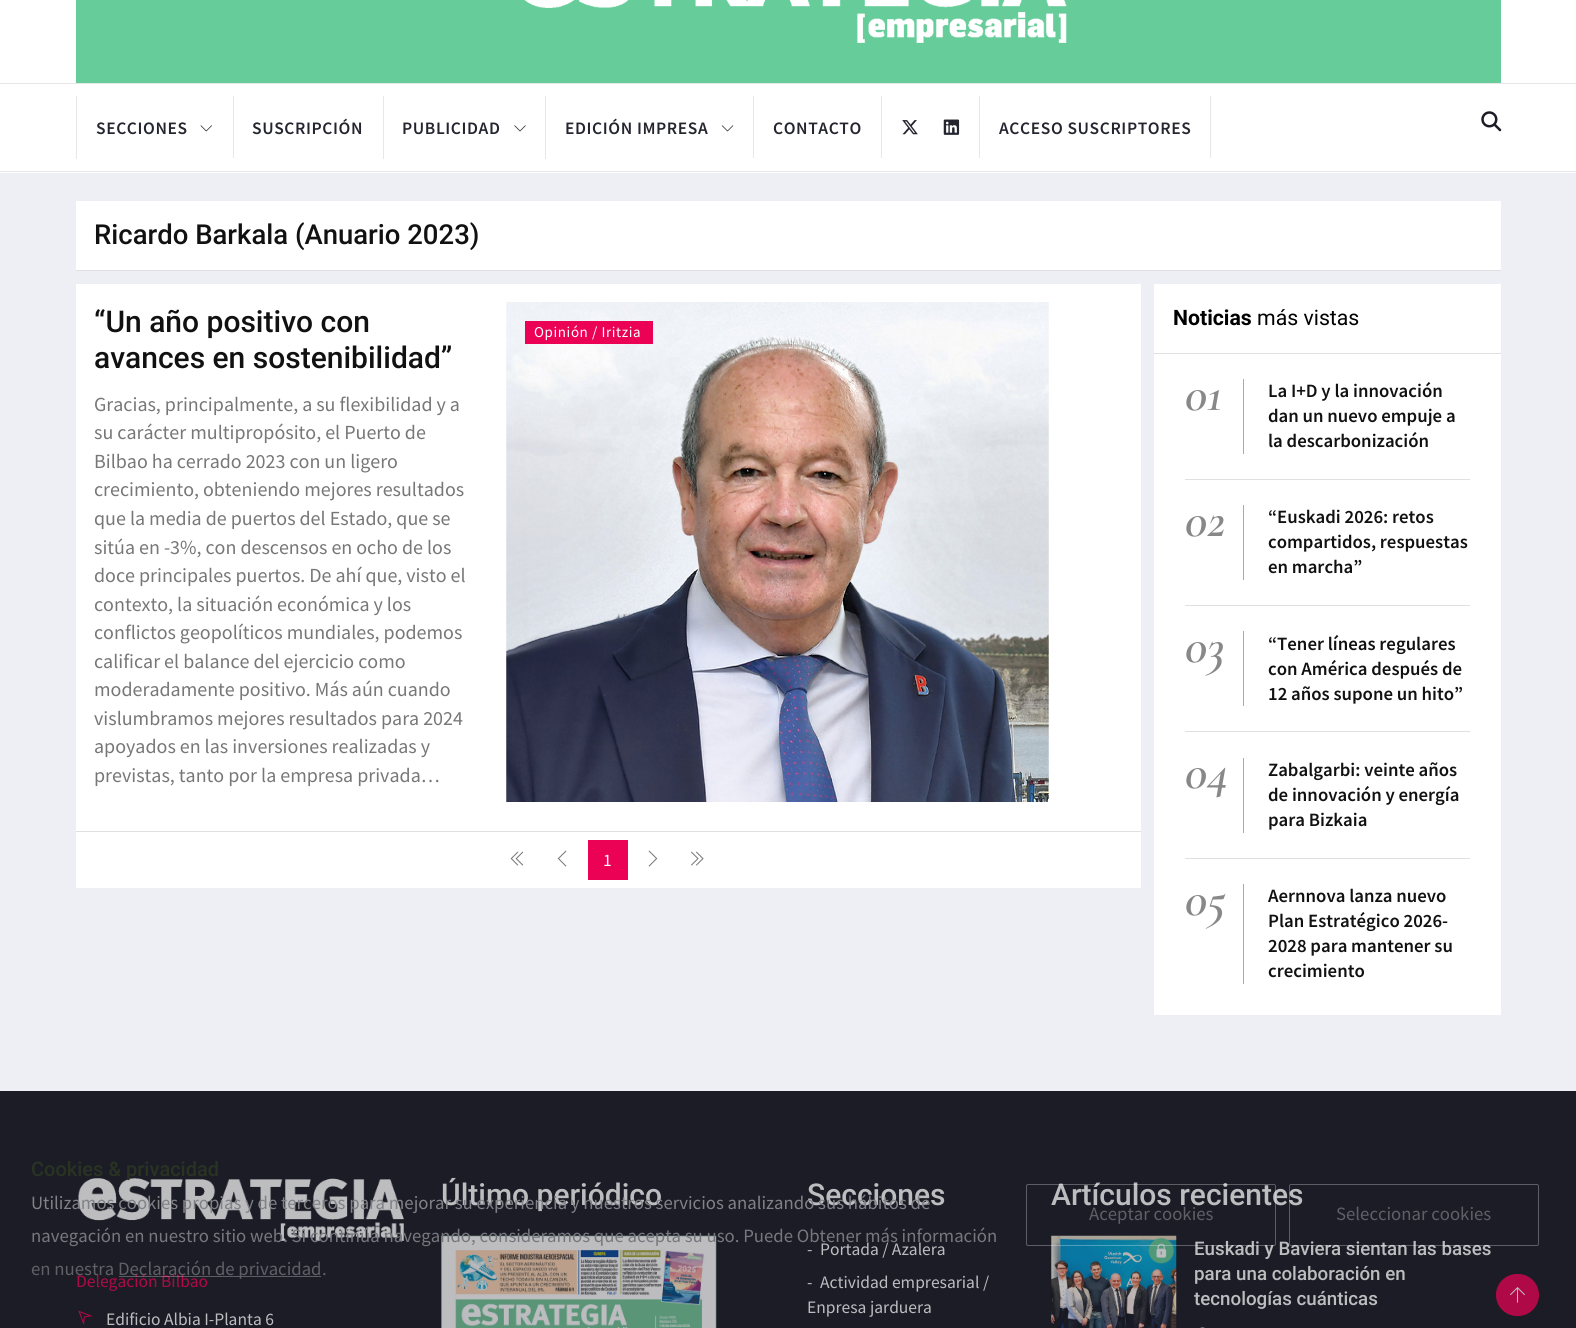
import math
import cairocffi as cairo

surface = cairo.ImageSurface(cairo.FORMAT_RGB24, 1576, 1328)
ctx = cairo.Context(surface)
options = cairo.FontOptions()
options.set_hint_metrics(cairo.HINT_METRICS_OFF)
options.set_hint_style(cairo.HINT_STYLE_NONE)
ctx.set_font_options(options)
ctx.set_miter_limit(4)


def rgb(r, g, b):
    ctx.set_source_rgb(r / 255, g / 255, b / 255)


def face(family, size, italic, bold):
    ctx.select_font_face(family, cairo.FONT_SLANT_ITALIC if italic else cairo.FONT_SLANT_NORMAL, cairo.FONT_WEIGHT_BOLD if bold else cairo.FONT_WEIGHT_NORMAL)
    ctx.set_font_size(size)


def label(x, y, s):
    ctx.move_to(x, y)
    ctx.show_text(s)


def tracked(x, y, s, letter, word):
    ctx.move_to(x, y)
    for ch in s:
        ctx.show_text(ch)
        ctx.rel_move_to(letter + word * (ch == ' '), 0)


def rect(x, y, w, h):
    ctx.rectangle(x, y, w, h)
    ctx.fill()


def rrect(x, y, w, h, r):
    ctx.new_sub_path()
    for i, (u, v) in enumerate([(x + w - r, y + h - r), (x + r, y + h - r), (x + r, y + r), (x + w - r, y + r)]):
        ctx.arc(u, v, r, i * math.pi / 2, (i + 1) * math.pi / 2)
    ctx.close_path()


def image(path, x, y, w, h):
    ctx.save()
    ctx.set_source_surface(cairo.ImageSurface.create_from_png(path), x, y)
    ctx.rectangle(x, y, w, h)
    ctx.fill()
    ctx.restore()


rgb(237, 239, 244)
ctx.paint()
rgb(255, 255, 255)
rect(0, 0, 1576, 83)
rgb(102, 204, 153)
rect(76, 0, 1425, 83)
image('image0.png', 524, 0, 543, 43)
rgb(255, 255, 255)
rect(0, 84, 1576, 89)
rgb(231, 231, 231)
rect(0, 83, 1576, 1)
rect(0, 171, 1576, 1)
rect(76, 96, 1, 63)
face('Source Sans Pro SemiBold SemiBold', 17.5, 0, 0)
rgb(36, 37, 47)
tracked(96, 134, 'SECCIONES', 0.6, 0)
image('image1.png', 200, 125, 12, 7)
rgb(231, 231, 231)
rect(233, 96, 1, 62)
rgb(36, 37, 47)
tracked(252, 134, 'SUSCRIPCIÓN', 0.6, 0)
rgb(231, 231, 231)
rect(383, 96, 1, 63)
rgb(36, 37, 47)
tracked(402, 134, 'PUBLICIDAD', 0.6, 0)
image('image2.png', 514, 125, 12, 7)
rgb(231, 231, 231)
rect(545, 96, 1, 63)
rgb(36, 37, 47)
tracked(565, 134, 'EDICIÓN IMPRESA', 0.6, 0)
image('image3.png', 721, 125, 13, 7)
rgb(231, 231, 231)
rect(753, 96, 1, 62)
rgb(36, 37, 47)
tracked(773, 134, 'CONTACTO', 0.6, 0)
rgb(231, 231, 231)
rect(881, 96, 1, 62)
image('image4.png', 902, 120, 16, 15)
image('image5.png', 943, 119, 17, 16)
rect(1210, 96, 1, 62)
rect(979, 96, 1, 62)
rgb(36, 37, 47)
tracked(999, 134, 'ACCESO SUSCRIPTORES', 0.6, 0)
image('image6.png', 1481, 111, 21, 21)
rgb(255, 255, 255)
rect(76, 201, 1425, 69)
rgb(224, 224, 224)
rect(76, 270, 1425, 1)
face('Roboto Medium', 27.5, 0, 0)
rgb(17, 17, 17)
label(94, 244, 'Ricardo Barkala (Anuario 2023)')
rgb(255, 255, 255)
rect(76, 284, 1065, 547)
face('Roboto Medium', 30, 0, 0)
rgb(17, 17, 17)
label(94, 332, '“Un año positivo con')
label(94, 368, 'avances en sostenibilidad”')
face('Source Sans Pro', 20, 0, 0)
rgb(119, 119, 119)
label(94, 411, 'Gracias, principalmente, a su flexibilidad y a')
label(94, 439, 'su carácter multipropósito, el Puerto de')
label(94, 468, 'Bilbao ha cerrado 2023 con un ligero')
label(94, 496, 'crecimiento, obteniendo mejores resultados')
label(94, 525, 'que la media de puertos del Estado, que se')
label(94, 554, 'sitúa en -3%, con descensos en ocho de los')
label(94, 582, 'doce principales puertos. De ahí que, visto el')
label(94, 611, 'contexto, la situación económica y los')
label(94, 639, 'conflictos geopolíticos mundiales, podemos')
label(94, 668, 'calificar el balance del ejercicio como')
label(94, 696, 'moderadamente positivo. Más aún cuando')
label(94, 725, 'vislumbramos mejores resultados para 2024')
label(94, 753, 'apoyados en las inversiones realizadas y')
label(94, 782, 'previstas, tanto por la empresa privada…')
image('image7.png', 506, 302, 543, 500)
rgb(235, 2, 84)
rect(525, 321, 128, 23)
face('Source Sans Pro', 15, 0, 0)
rgb(255, 255, 255)
tracked(534, 337, 'Opinión / Iritzia', 0.6, 0)
rect(76, 832, 1065, 56)
rgb(224, 224, 224)
rect(76, 831, 1065, 1)
image('image8.png', 510, 851, 14, 15)
image('image9.png', 557, 850, 10, 17)
rgb(235, 2, 84)
rect(588, 840, 40, 40)
face('Source Sans Pro', 17.5, 0, 0)
rgb(255, 255, 255)
label(603, 866, '1')
image('image10.png', 648, 850, 10, 17)
image('image11.png', 691, 851, 13, 15)
rect(1154, 284, 347, 731)
rgb(224, 224, 224)
rect(1154, 353, 347, 1)
face('Roboto', 21.25, 0, 1)
rgb(0, 0, 0)
label(1173, 325, 'Noticias')
face('Roboto', 21.25, 0, 0)
label(1257, 325, 'más vistas')
rgb(224, 224, 224)
rect(1185, 479, 285, 1)
face('Cormorant Garamond SemiBold', 50, 1, 0)
rgb(136, 136, 136)
label(1185, 410, '01')
rgb(170, 170, 170)
rect(1243, 379, 1, 75)
face('Source Sans Pro SemiBold SemiBold', 18.8, 0, 0)
rgb(17, 17, 17)
label(1268, 397, 'La I+D y la innovación')
label(1268, 422, 'dan un nuevo empuje a')
label(1268, 447, 'la descarbonización')
rgb(224, 224, 224)
rect(1185, 605, 285, 1)
face('Cormorant Garamond SemiBold', 50, 1, 0)
rgb(136, 136, 136)
label(1185, 536, '02')
rgb(170, 170, 170)
rect(1243, 505, 1, 75)
face('Source Sans Pro SemiBold SemiBold', 18.8, 0, 0)
rgb(17, 17, 17)
label(1268, 523, '“Euskadi 2026: retos')
label(1268, 548, 'compartidos, respuestas')
label(1268, 573, 'en marcha”')
rgb(224, 224, 224)
rect(1185, 731, 285, 1)
face('Cormorant Garamond SemiBold', 50, 1, 0)
rgb(136, 136, 136)
label(1185, 662, '03')
rgb(170, 170, 170)
rect(1243, 631, 1, 75)
face('Source Sans Pro SemiBold SemiBold', 18.8, 0, 0)
rgb(17, 17, 17)
label(1268, 650, '“Tener líneas regulares')
label(1268, 675, 'con América después de')
label(1268, 700, '12 años supone un hito”')
rgb(224, 224, 224)
rect(1185, 858, 285, 1)
face('Cormorant Garamond SemiBold', 50, 1, 0)
rgb(136, 136, 136)
label(1185, 788, '04')
rgb(170, 170, 170)
rect(1243, 758, 1, 75)
face('Source Sans Pro SemiBold SemiBold', 18.8, 0, 0)
rgb(17, 17, 17)
label(1268, 776, 'Zabalgarbi: veinte años')
label(1268, 801, 'de innovación y energía')
label(1268, 826, 'para Bizkaia')
face('Cormorant Garamond SemiBold', 50, 1, 0)
rgb(136, 136, 136)
label(1185, 915, '05')
rgb(170, 170, 170)
rect(1243, 884, 1, 100)
face('Source Sans Pro SemiBold SemiBold', 18.8, 0, 0)
rgb(17, 17, 17)
label(1268, 902, 'Aernnova lanza nuevo')
label(1268, 927, 'Plan Estratégico 2026-')
label(1268, 952, '2028 para mantener su')
label(1268, 977, 'crecimiento')
rgb(27, 28, 38)
rect(0, 1091, 1576, 237)
image('image12.png', 78, 1178, 326, 63)
face('Source Sans Pro', 17.5, 0, 0)
rgb(175, 10, 71)
label(76, 1287, 'Delegación Bilbao')
image('image13.png', 78, 1310, 15, 15)
rgb(189, 189, 192)
label(106, 1325, 'Edificio Albia I-Planta 6')
face('Roboto Medium', 30, 0, 0)
label(441, 1205, 'Último periódico')
image('image14.png', 441, 1235, 276, 93)
label(807, 1205, 'Secciones')
face('Source Sans Pro', 17.5, 0, 0)
label(807, 1255, '-')
label(820, 1255, 'Portada / Azalera')
label(807, 1288, '-')
label(820, 1288, 'Actividad empresarial /')
label(807, 1313, 'Enpresa jarduera')
face('Roboto Medium', 30, 0, 0)
label(1051, 1205, 'Artículos recientes')
image('image15.png', 1051, 1235, 126, 93)
image('image16.png', 1148, 1238, 26, 26)
face('Roboto Medium', 18.75, 0, 0)
label(1194, 1255, 'Euskadi y Baviera sientan las bases')
label(1194, 1280, 'para una colaboración en')
label(1194, 1305, 'tecnologías cuánticas')
image('image17.png', 1200, 1327, 5, 1)
face('Roboto Medium', 20, 0, 0)
rgb(41, 51, 34)
label(31, 1176, 'Cookies & privacidad')
face('Source Sans Pro', 18.75, 0, 0)
rgb(129, 130, 135)
label(31, 1209, 'Utilizamos cookies propias y de terceros para mejorar su experiencia y nuestros servicios analizando sus hábitos de')
rgb(119, 120, 126)
label(31, 1242, 'navegación en nuestro sitio web. Si continúa navegando, consideramos que acepta su uso. Puede Obtener más información')
rgb(95, 95, 102)
label(31, 1275, 'en nuestra')
ctx.set_source_rgba(1, 1, 1, 0.29)
rect(119, 1276, 202, 1)
rgb(95, 95, 102)
label(118, 1275, 'Declaración de privacidad')
label(322, 1275, '.')
rrect(1026.5, 1184.5, 249, 61, 1.5)
ctx.set_source_rgba(1, 1, 1, 0.29)
ctx.set_line_width(1)
ctx.stroke()
rgb(95, 95, 102)
label(1089, 1220, 'Aceptar cookies')
rrect(1289.5, 1184.5, 249, 61, 1.5)
ctx.set_source_rgba(1, 1, 1, 0.29)
ctx.stroke()
rgb(95, 95, 102)
label(1336, 1220, 'Seleccionar cookies')
rgb(175, 10, 71)
rrect(1496.5, 1274.5, 42, 41, 20.5)
ctx.fill_preserve()
ctx.stroke()
image('image18.png', 1510, 1287, 15, 16)
surface.write_to_png('render.png')
